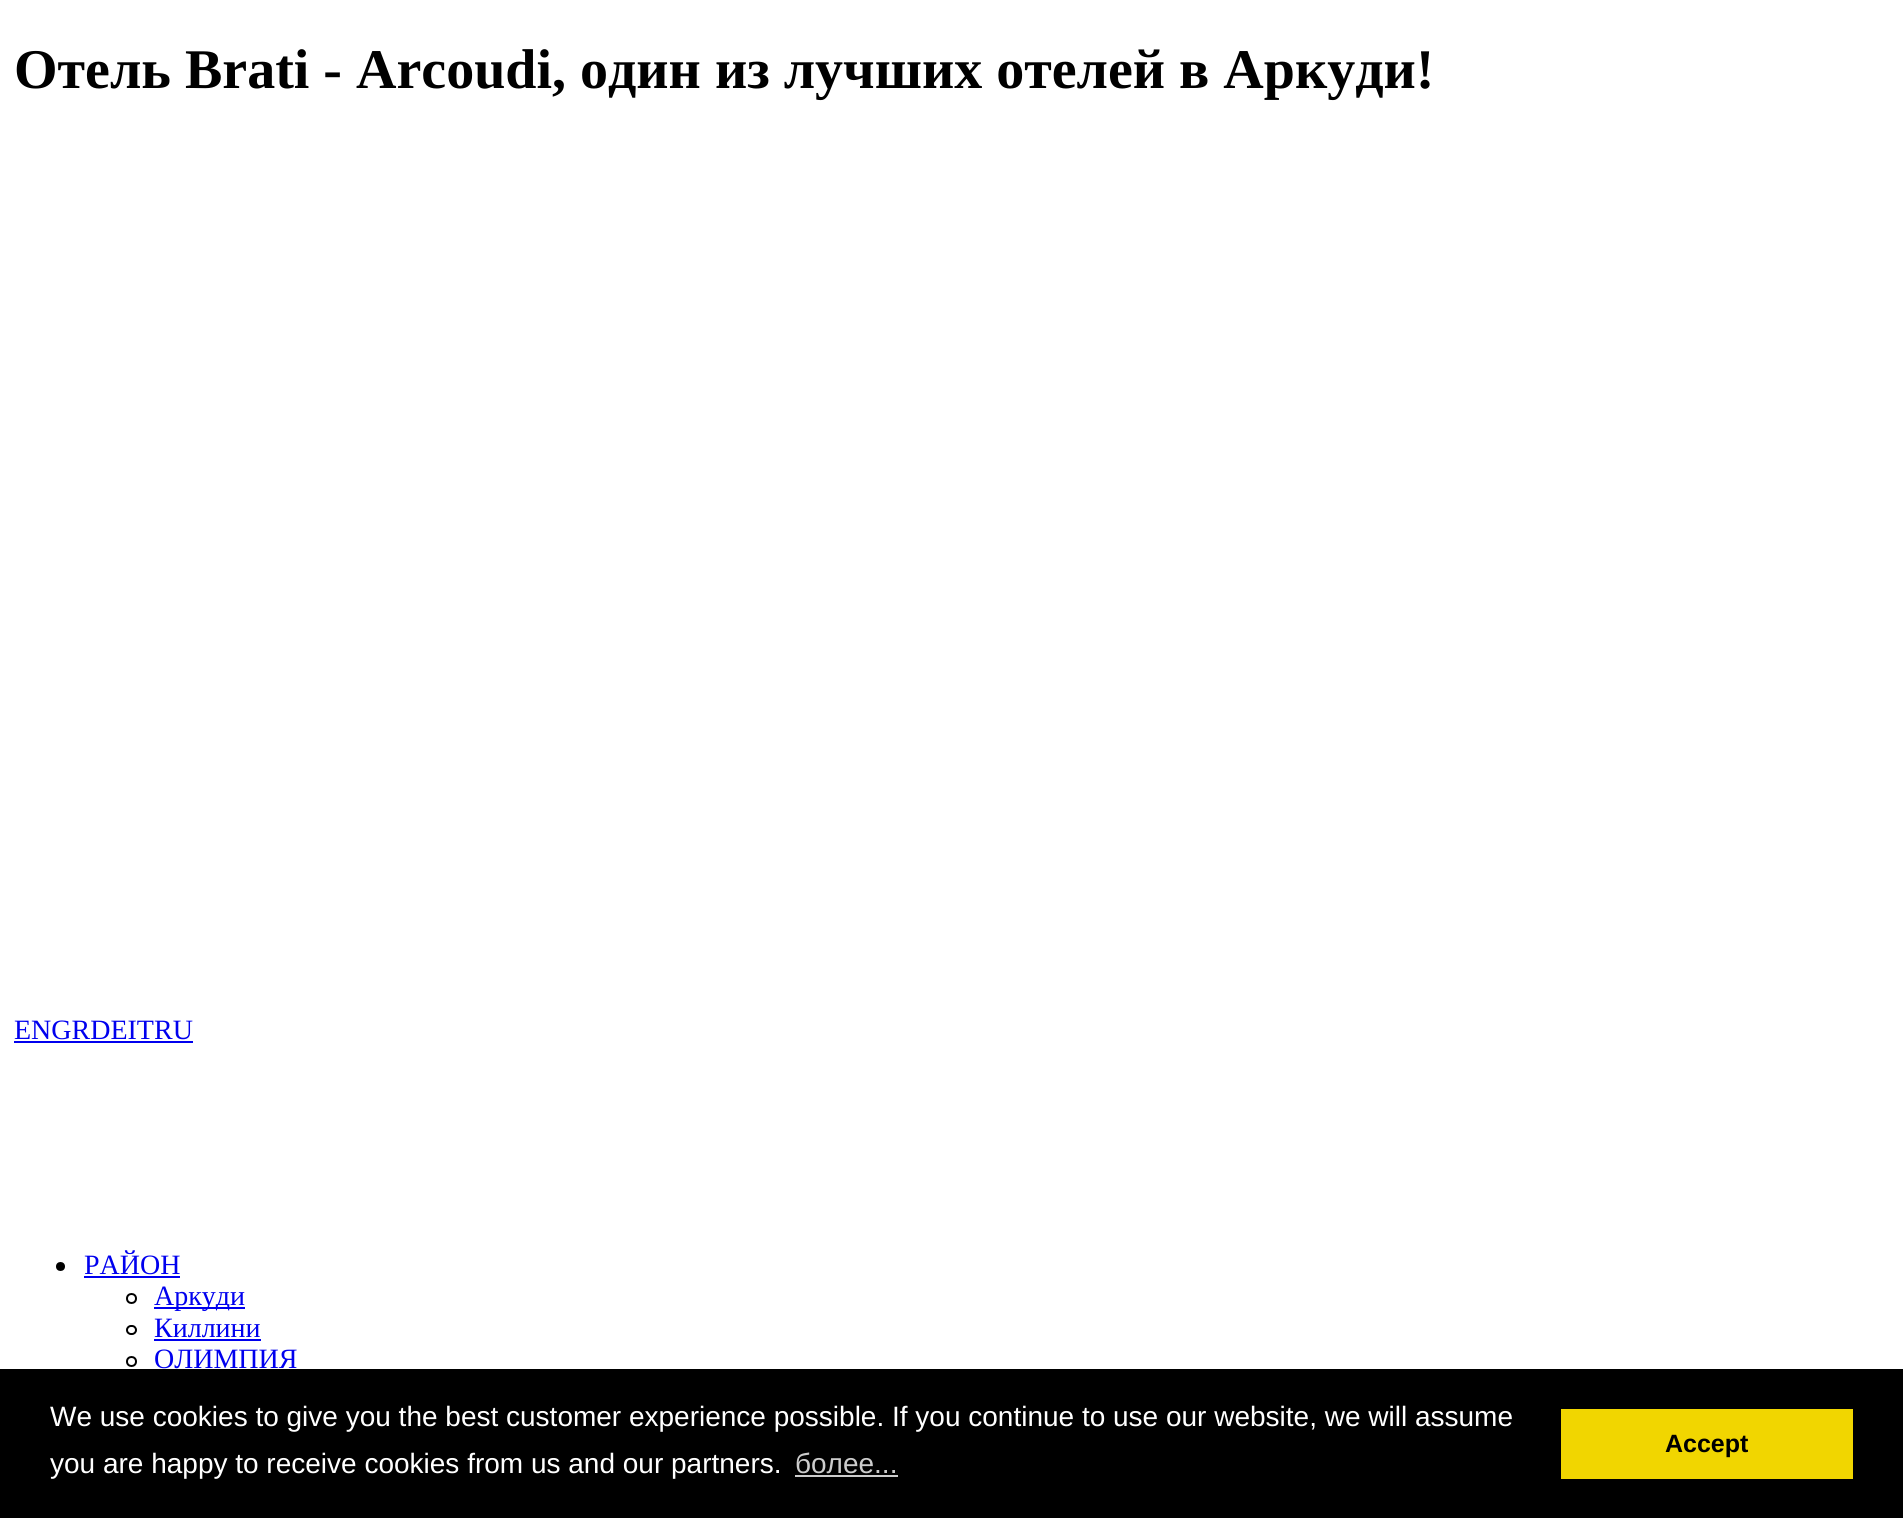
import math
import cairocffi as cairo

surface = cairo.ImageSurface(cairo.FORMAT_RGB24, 1903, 1518)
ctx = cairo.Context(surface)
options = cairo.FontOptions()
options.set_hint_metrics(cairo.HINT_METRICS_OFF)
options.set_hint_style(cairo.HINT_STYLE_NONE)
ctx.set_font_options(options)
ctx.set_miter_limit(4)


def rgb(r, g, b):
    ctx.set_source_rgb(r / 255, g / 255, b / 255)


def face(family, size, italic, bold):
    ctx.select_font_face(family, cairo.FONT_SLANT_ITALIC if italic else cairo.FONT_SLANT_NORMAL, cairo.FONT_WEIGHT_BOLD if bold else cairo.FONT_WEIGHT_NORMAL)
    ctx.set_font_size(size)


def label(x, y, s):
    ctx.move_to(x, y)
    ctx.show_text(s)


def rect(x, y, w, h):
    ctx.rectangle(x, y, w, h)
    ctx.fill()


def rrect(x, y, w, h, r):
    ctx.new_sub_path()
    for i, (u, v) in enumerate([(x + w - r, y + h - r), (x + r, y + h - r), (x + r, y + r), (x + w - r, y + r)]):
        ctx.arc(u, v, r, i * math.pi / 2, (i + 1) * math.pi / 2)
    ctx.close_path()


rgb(255, 255, 255)
ctx.paint()
face('Liberation Serif', 56, 0, 1)
rgb(0, 0, 0)
label(14, 88, 'Отель Brati - Arcoudi, один из лучших отелей в Аркуди!')
face('Liberation Serif', 28, 0, 0)
rgb(0, 0, 238)
label(14, 1039, 'ENGRDEITRU')
rect(14, 1041, 179, 2)
rgb(0, 0, 0)
ctx.new_path()
ctx.arc(60.5, 1266.5, 4.5, 0, 2 * math.pi)
ctx.fill()
rgb(0, 0, 238)
label(84, 1274, 'РАЙОН')
rect(84, 1276, 96, 2)
ctx.new_path()
ctx.arc(131.5, 1298.5, 4.5, 0, 2 * math.pi)
rgb(0, 0, 0)
ctx.stroke()
rgb(0, 0, 238)
rect(154, 1307, 91, 2)
label(154, 1305, 'Аркуди')
rrect(127, 1326, 9, 8, 4)
rgb(0, 0, 0)
ctx.stroke()
rgb(0, 0, 238)
label(154, 1337, 'Киллини')
rect(154, 1339, 107, 2)
ctx.new_path()
ctx.arc(131.5, 1361.5, 4.5, 0, 2 * math.pi)
rgb(0, 0, 0)
ctx.stroke()
rgb(0, 0, 238)
label(154, 1368, 'ОЛИМПИЯ')
rgb(0, 0, 0)
rect(0, 1369, 1903, 149)
face('Liberation Sans', 28, 0, 0)
rgb(255, 255, 255)
label(50, 1426, 'We use cookies to give you the best customer experience possible. If you continue to use our website, we will assume')
label(50, 1473, 'you are happy to receive cookies from us and our partners.')
rgb(204, 204, 204)
label(795, 1473, 'более...')
rect(795, 1475, 103, 2)
rgb(241, 214, 0)
rect(1561, 1409, 292, 70)
face('Liberation Sans', 25, 0, 1)
rgb(0, 0, 0)
label(1665, 1452, 'Accept')
surface.write_to_png('render.png')
